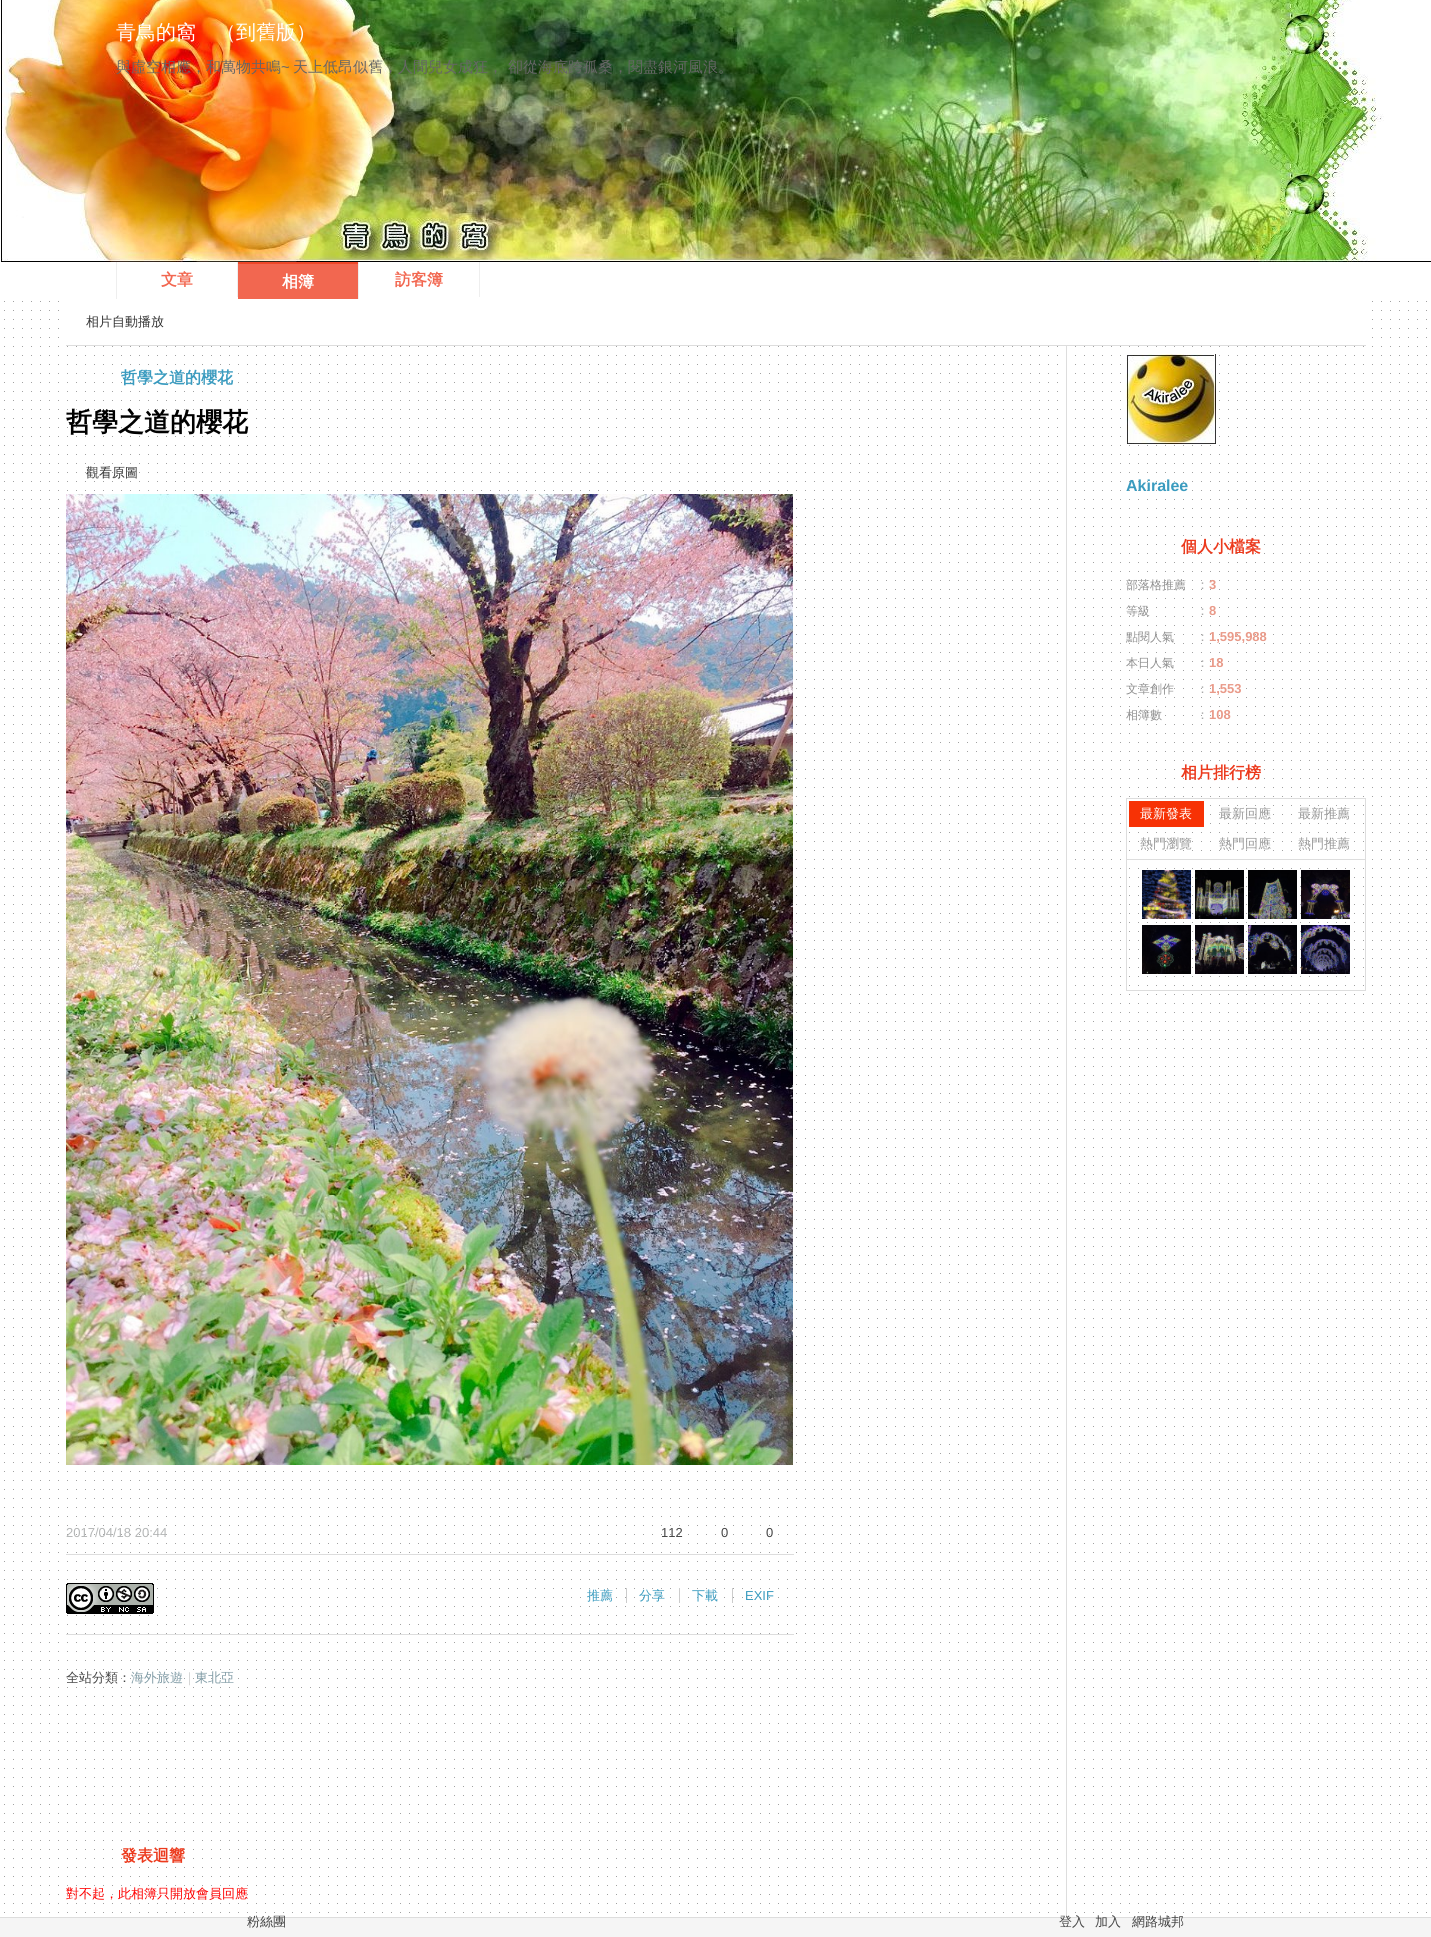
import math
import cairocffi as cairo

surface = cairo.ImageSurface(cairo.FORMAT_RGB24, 1431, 1937)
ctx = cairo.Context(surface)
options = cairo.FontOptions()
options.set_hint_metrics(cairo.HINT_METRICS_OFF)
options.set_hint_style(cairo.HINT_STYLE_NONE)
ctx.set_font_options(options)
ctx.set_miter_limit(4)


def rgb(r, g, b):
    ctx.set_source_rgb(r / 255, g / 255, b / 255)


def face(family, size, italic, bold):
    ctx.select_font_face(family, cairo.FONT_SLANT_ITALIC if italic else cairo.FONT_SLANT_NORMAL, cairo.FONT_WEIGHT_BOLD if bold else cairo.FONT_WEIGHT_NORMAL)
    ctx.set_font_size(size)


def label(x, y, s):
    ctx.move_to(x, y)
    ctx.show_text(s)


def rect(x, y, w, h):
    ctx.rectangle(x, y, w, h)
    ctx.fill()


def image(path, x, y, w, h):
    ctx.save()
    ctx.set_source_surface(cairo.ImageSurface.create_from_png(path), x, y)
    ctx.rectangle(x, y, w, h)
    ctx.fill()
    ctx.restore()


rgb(255, 255, 255)
ctx.paint()
image('image0.png', 4, 299, 1423, 1618)
image('image1.png', 0, 0, 1431, 262)
face('WenQuanYi Zen Hei Medium', 20, 0, 0)
rgb(255, 255, 255)
label(116, 39, '青鳥的窩')
label(216, 39, '（到舊版）')
face('WenQuanYi Zen Hei Medium', 15, 0, 0)
rgb(102, 102, 102)
label(116, 72, '與虛空相應，和萬物共鳴')
face('Liberation Sans', 15, 0, 0)
label(281, 72, '~')
face('WenQuanYi Zen Hei Medium', 15, 0, 0)
label(293, 72, '天上低昂似舊，人間兒女成狂，')
label(508, 72, '卻從海底跨孤桑，閱盡銀河風浪。')
rgb(238, 238, 238)
rect(116, 262, 1, 37)
rect(237, 262, 1, 35)
face('WenQuanYi Zen Hei', 16, 0, 1)
rgb(242, 103, 80)
label(161, 285, '文章')
rgb(238, 238, 238)
rect(358, 262, 1, 37)
rgb(242, 103, 80)
rect(238, 264, 120, 35)
rgb(239, 71, 41)
rect(238, 262, 120, 2)
rgb(255, 255, 255)
label(282, 287, '相簿')
rgb(238, 238, 238)
rect(479, 262, 1, 35)
rgb(242, 103, 80)
label(395, 285, '訪客簿')
rgb(221, 221, 221)
rect(1066, 346, 1, 1571)
rgb(255, 255, 255)
rect(67, 301, 1297, 37)
rgb(221, 221, 221)
rect(66, 345, 1300, 1)
face('WenQuanYi Zen Hei Medium', 13, 0, 0)
rgb(51, 51, 51)
label(86, 326, '相片自動播放')
face('WenQuanYi Zen Hei', 16, 0, 1)
rgb(58, 155, 191)
label(121, 383, '哲學之道的櫻花')
face('WenQuanYi Zen Hei', 26, 0, 1)
rgb(0, 0, 0)
label(66, 431, '哲學之道的櫻花')
face('WenQuanYi Zen Hei Medium', 13, 0, 0)
rgb(51, 51, 51)
label(86, 477, '觀看原圖')
image('image2.png', 66, 494, 727, 971)
face('Liberation Sans', 13, 0, 0)
rgb(180, 182, 182)
label(66, 1537, '2017/04/18 20:44')
rgb(68, 68, 68)
label(661, 1537, '112')
label(721, 1537, '0')
label(766, 1537, '0')
rgb(221, 221, 221)
rect(66, 1554, 728, 1)
image('image3.png', 66, 1583, 88, 31)
face('WenQuanYi Zen Hei Medium', 13, 0, 0)
rgb(58, 155, 191)
label(587, 1600, '推薦')
rgb(204, 204, 204)
rect(626, 1588, 1, 15)
rgb(58, 155, 191)
label(639, 1600, '分享')
rgb(204, 204, 204)
rect(679, 1588, 1, 15)
rgb(58, 155, 191)
label(692, 1600, '下載')
rgb(204, 204, 204)
rect(732, 1588, 1, 15)
face('Liberation Sans', 13, 0, 0)
rgb(58, 155, 191)
label(745, 1600, 'EXIF')
rgb(221, 221, 221)
rect(66, 1634, 728, 1)
face('WenQuanYi Zen Hei Medium', 13, 0, 0)
rgb(68, 68, 68)
label(66, 1682, '全站分類：')
rgb(129, 156, 166)
label(131, 1682, '海外旅遊')
rgb(204, 204, 204)
label(183, 1682, '｜')
rgb(129, 156, 166)
label(195, 1682, '東北亞')
face('WenQuanYi Zen Hei', 16, 0, 1)
rgb(236, 58, 29)
label(121, 1861, '發表迴響')
face('WenQuanYi Zen Hei Medium', 13, 0, 0)
rgb(255, 0, 0)
label(66, 1898, '對不起，此相簿只開放會員回應')
image('image4.png', 1126, 354, 90, 90)
face('Liberation Sans', 16, 0, 1)
rgb(58, 155, 191)
label(1126, 491, 'Akiralee')
face('WenQuanYi Zen Hei', 16, 0, 1)
rgb(236, 58, 29)
label(1181, 552, '個人小檔案')
face('WenQuanYi Zen Hei Medium', 12, 0, 0)
rgb(144, 144, 144)
label(1126, 589, '部落格推薦')
face('WenQuanYi Zen Hei Medium', 13, 0, 0)
rgb(170, 170, 170)
label(1196, 589, '：')
face('Liberation Sans', 13, 0, 1)
rgb(233, 154, 137)
label(1209, 589, '3')
face('WenQuanYi Zen Hei Medium', 12, 0, 0)
rgb(144, 144, 144)
label(1126, 615, '等級')
face('WenQuanYi Zen Hei Medium', 13, 0, 0)
rgb(170, 170, 170)
label(1196, 615, '：')
face('Liberation Sans', 13, 0, 1)
rgb(233, 154, 137)
label(1209, 615, '8')
face('WenQuanYi Zen Hei Medium', 12, 0, 0)
rgb(144, 144, 144)
label(1126, 641, '點閱人氣')
face('WenQuanYi Zen Hei Medium', 13, 0, 0)
rgb(170, 170, 170)
label(1196, 641, '：')
face('Liberation Sans', 13, 0, 1)
rgb(233, 154, 137)
label(1209, 641, '1,595,988')
face('WenQuanYi Zen Hei Medium', 12, 0, 0)
rgb(144, 144, 144)
label(1126, 667, '本日人氣')
face('WenQuanYi Zen Hei Medium', 13, 0, 0)
rgb(170, 170, 170)
label(1196, 667, '：')
face('Liberation Sans', 13, 0, 1)
rgb(233, 154, 137)
label(1209, 667, '18')
face('WenQuanYi Zen Hei Medium', 12, 0, 0)
rgb(144, 144, 144)
label(1126, 693, '文章創作')
face('WenQuanYi Zen Hei Medium', 13, 0, 0)
rgb(170, 170, 170)
label(1196, 693, '：')
face('Liberation Sans', 13, 0, 1)
rgb(233, 154, 137)
label(1209, 693, '1,553')
face('WenQuanYi Zen Hei Medium', 12, 0, 0)
rgb(144, 144, 144)
label(1126, 719, '相簿數')
face('WenQuanYi Zen Hei Medium', 13, 0, 0)
rgb(170, 170, 170)
label(1196, 719, '：')
face('Liberation Sans', 13, 0, 1)
rgb(233, 154, 137)
label(1209, 719, '108')
face('WenQuanYi Zen Hei', 16, 0, 1)
rgb(236, 58, 29)
label(1181, 778, '相片排行榜')
ctx.rectangle(1126.5, 798.5, 239, 61)
rgb(221, 221, 221)
ctx.set_line_width(1)
ctx.stroke()
rgb(247, 50, 5)
rect(1129, 801, 75, 26)
face('WenQuanYi Zen Hei Medium', 13, 0, 0)
rgb(255, 255, 255)
label(1140, 818, '最新發表')
rgb(153, 153, 153)
label(1219, 818, '最新回應')
label(1298, 818, '最新推薦')
label(1140, 848, '熱門瀏覽')
label(1219, 848, '熱門回應')
label(1298, 848, '熱門推薦')
rgb(221, 221, 221)
rect(1365, 860, 1, 131)
rect(1126, 990, 240, 1)
rect(1126, 860, 1, 131)
image('image5.png', 1142, 870, 49, 49)
image('image6.png', 1195, 870, 49, 49)
image('image7.png', 1248, 870, 49, 49)
image('image8.png', 1301, 870, 49, 49)
image('image9.png', 1142, 925, 49, 49)
image('image10.png', 1195, 925, 49, 49)
image('image11.png', 1248, 925, 49, 49)
image('image12.png', 1301, 925, 49, 49)
rgb(245, 245, 245)
rect(0, 1918, 1431, 19)
rgb(221, 221, 221)
rect(0, 1917, 1431, 1)
rgb(68, 68, 68)
label(247, 1926, '粉絲團')
label(1059, 1926, '登入')
label(1095, 1926, '加入')
label(1132, 1926, '網路城邦')
surface.write_to_png('render.png')
